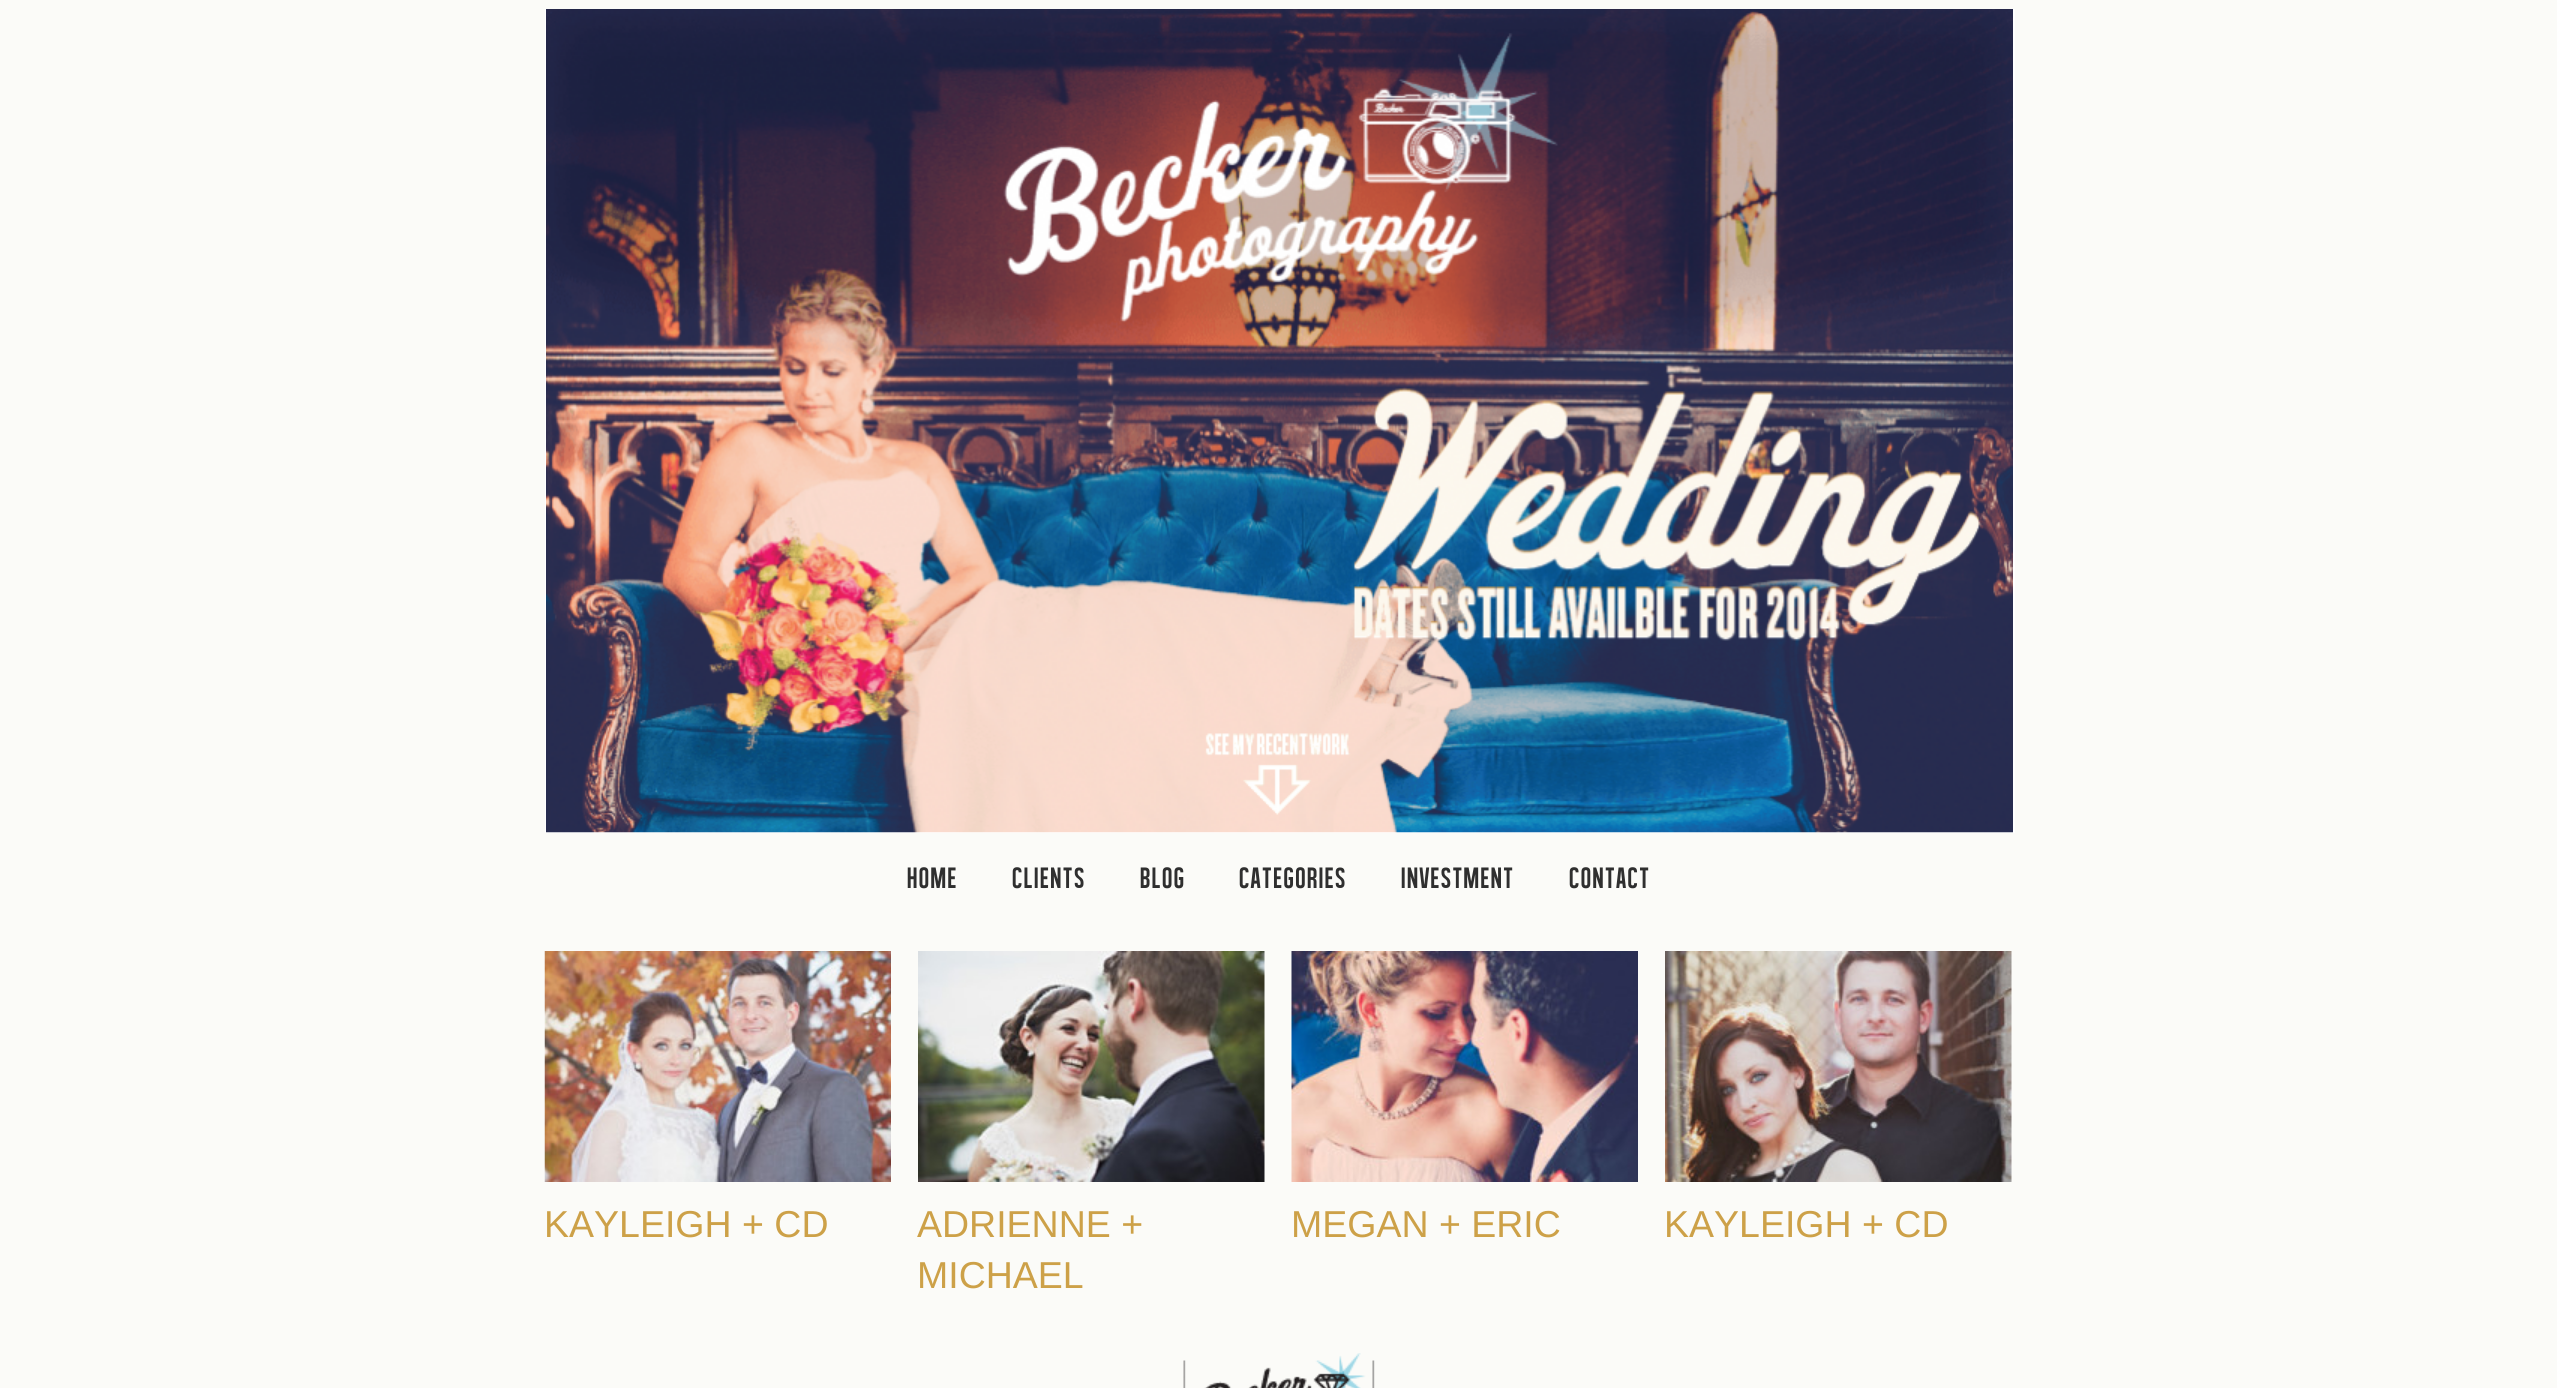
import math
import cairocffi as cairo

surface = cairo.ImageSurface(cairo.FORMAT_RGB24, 2557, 1388)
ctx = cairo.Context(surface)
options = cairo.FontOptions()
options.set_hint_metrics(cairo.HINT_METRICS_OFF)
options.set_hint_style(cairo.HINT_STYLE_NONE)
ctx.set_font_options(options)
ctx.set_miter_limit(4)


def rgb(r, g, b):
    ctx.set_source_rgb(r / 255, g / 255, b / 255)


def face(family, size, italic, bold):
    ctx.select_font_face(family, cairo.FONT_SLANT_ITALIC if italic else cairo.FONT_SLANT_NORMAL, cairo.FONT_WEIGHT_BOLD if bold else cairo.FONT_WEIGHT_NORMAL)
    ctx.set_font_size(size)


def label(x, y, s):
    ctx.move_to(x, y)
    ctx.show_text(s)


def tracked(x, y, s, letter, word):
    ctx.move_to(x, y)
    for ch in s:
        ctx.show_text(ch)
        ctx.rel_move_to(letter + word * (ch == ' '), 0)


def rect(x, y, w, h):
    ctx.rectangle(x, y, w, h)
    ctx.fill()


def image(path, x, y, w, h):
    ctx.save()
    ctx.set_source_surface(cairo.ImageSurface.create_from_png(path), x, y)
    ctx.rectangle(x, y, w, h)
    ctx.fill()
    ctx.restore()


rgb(251, 251, 248)
ctx.paint()
rgb(255, 255, 255)
rect(545, 9, 1470, 824)
image('image0.png', 546, 9, 1467, 824)
image('image1.png', 1003, 33, 555, 290)
face('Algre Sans', 30, 0, 0)
rgb(47, 47, 47)
tracked(907, 888, 'HOME', 1.5, 0)
tracked(1012, 888, 'CLIENTS', 1.5, 0)
tracked(1140, 888, 'BLOG', 1.5, 0)
tracked(1239, 888, 'CATEGORIES', 1.5, 0)
tracked(1401, 888, 'INVESTMENT', 1.5, 0)
tracked(1569, 888, 'CONTACT', 1.5, 0)
image('image2.png', 544, 951, 347, 231)
face('Liberation Sans', 37.5, 0, 0)
rgb(205, 161, 72)
label(544, 1237, 'KAYLEIGH + CD')
image('image3.png', 918, 951, 347, 231)
label(917, 1237, 'ADRIENNE +')
label(917, 1288, 'MICHAEL')
image('image4.png', 1291, 951, 347, 231)
label(1291, 1237, 'MEGAN + ERIC')
image('image5.png', 1665, 951, 347, 231)
label(1664, 1237, 'KAYLEIGH + CD')
image('image6.png', 1183, 1353, 192, 35)
surface.write_to_png('render.png')
